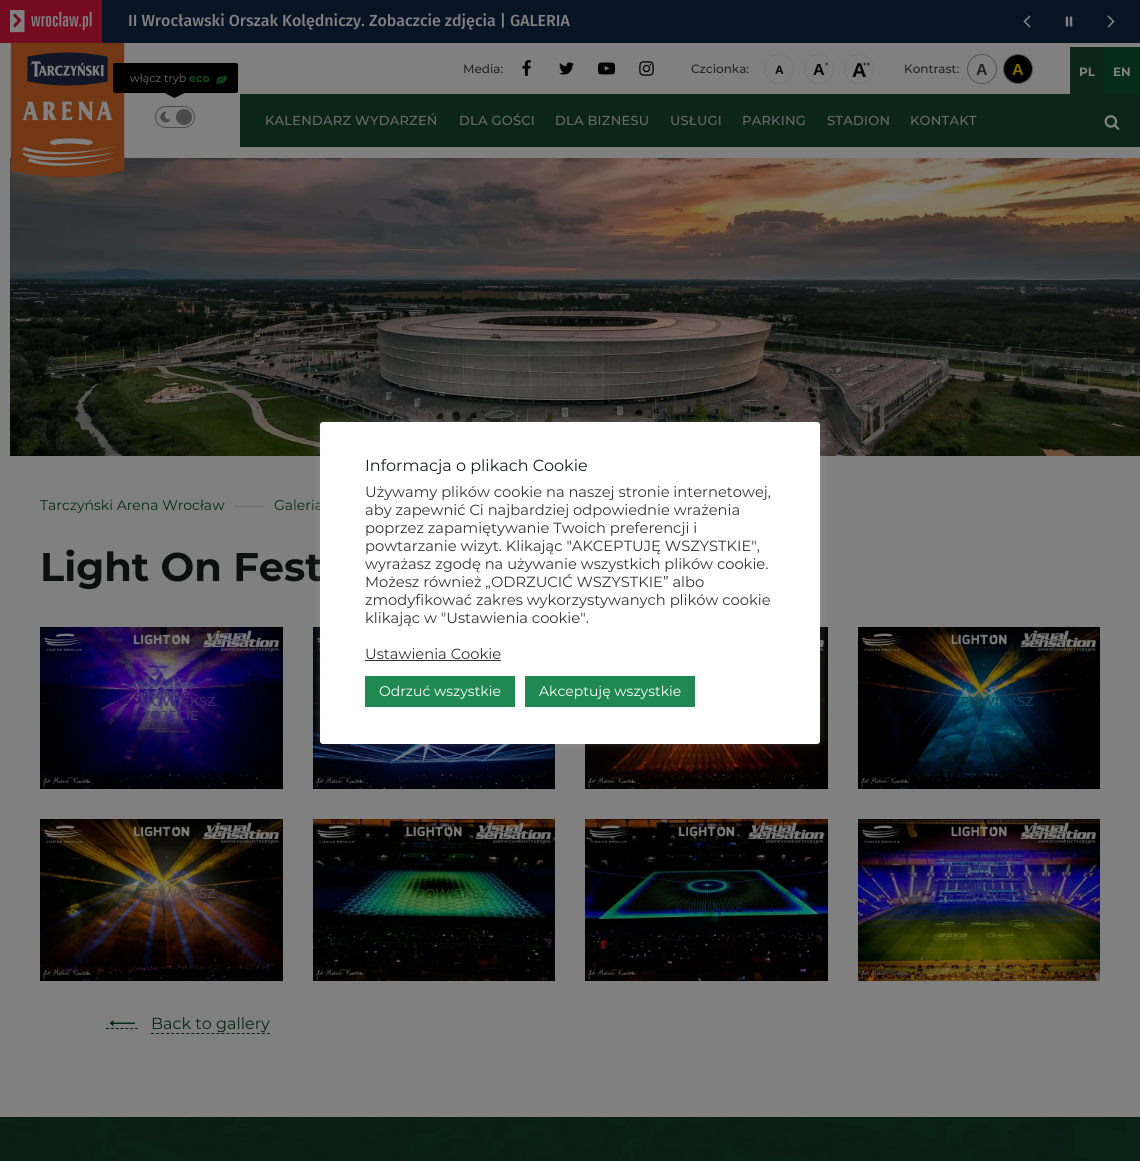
import math
import cairocffi as cairo

surface = cairo.ImageSurface(cairo.FORMAT_RGB24, 1140, 1161)
ctx = cairo.Context(surface)
options = cairo.FontOptions()
options.set_hint_metrics(cairo.HINT_METRICS_OFF)
options.set_hint_style(cairo.HINT_STYLE_NONE)
ctx.set_font_options(options)
ctx.set_miter_limit(4)


def rgb(r, g, b):
    ctx.set_source_rgb(r / 255, g / 255, b / 255)


def face(family, size, italic, bold):
    ctx.select_font_face(family, cairo.FONT_SLANT_ITALIC if italic else cairo.FONT_SLANT_NORMAL, cairo.FONT_WEIGHT_BOLD if bold else cairo.FONT_WEIGHT_NORMAL)
    ctx.set_font_size(size)


def label(x, y, s):
    ctx.move_to(x, y)
    ctx.show_text(s)


def tracked(x, y, s, letter, word):
    ctx.move_to(x, y)
    for ch in s:
        ctx.show_text(ch)
        ctx.rel_move_to(letter + word * (ch == ' '), 0)


def rect(x, y, w, h):
    ctx.rectangle(x, y, w, h)
    ctx.fill()


def rrect(x, y, w, h, r):
    ctx.new_sub_path()
    for i, (u, v) in enumerate([(x + w - r, y + h - r), (x + r, y + h - r), (x + r, y + r), (x + w - r, y + r)]):
        ctx.arc(u, v, r, i * math.pi / 2, (i + 1) * math.pi / 2)
    ctx.close_path()


def soft_shadow(x, y, w, h, r, blur, alpha):
    ctx.push_group_with_content(cairo.CONTENT_ALPHA)
    ctx.set_operator(cairo.OPERATOR_SOURCE)
    for i in range(15, -16, -2):
        e = blur * i / 6
        if min(w, h) + 2 * e > 0:
            ctx.set_source_rgba(0, 0, 0, alpha * math.erfc((i - 1) / 8.5) / 2)
            rrect(x - e, y - e, w + 2 * e, h + 2 * e, max(0, min(r + e + blur * .6, min(w, h) / 2 + e)))
            ctx.fill()
    ctx.mask(ctx.pop_group())


def image(path, x, y, w, h):
    ctx.save()
    ctx.set_source_surface(cairo.ImageSurface.create_from_png(path), x, y)
    ctx.rectangle(x, y, w, h)
    ctx.fill()
    ctx.restore()


rgb(128, 128, 128)
ctx.paint()
rgb(9, 19, 38)
rect(102, 0, 1038, 43)
rgb(117, 11, 32)
rect(0, 0, 102, 43)
image('image0.png', 10, 10, 82, 23)
face('Fira Sans Medium', 16, 0, 0)
rgb(128, 128, 128)
label(128, 26, 'II Wrocławski Orszak Kolędniczy. Zobaczcie zdjęcia | GALERIA')
ctx.new_path()
ctx.move_to(1030, 27)
ctx.line_to(1024.5, 21.5)
ctx.line_to(1030, 16)
ctx.set_line_width(1.6)
ctx.stroke()
image('image1.png', 1065, 16, 8, 11)
ctx.new_path()
ctx.move_to(1108, 16)
ctx.line_to(1113.5, 21.5)
ctx.line_to(1108, 27)
ctx.stroke()
face('Montserrat Medium', 12, 0, 0)
rgb(35, 35, 35)
label(463, 73, 'Media:')
image('image2.png', 522, 60, 9, 16)
image('image3.png', 559, 62, 15, 13)
image('image4.png', 598, 62, 17, 13)
image('image5.png', 639, 61, 15, 15)
label(691, 73, 'Czcionka:')
ctx.new_path()
ctx.arc(779, 69, 14.5, 0, 2 * math.pi)
rgb(120, 120, 120)
ctx.set_line_width(1)
ctx.stroke()
face('Liberation Sans', 12, 0, 1)
rgb(0, 0, 0)
label(775, 74, 'A')
ctx.new_path()
ctx.arc(819, 69, 14.5, 0, 2 * math.pi)
rgb(120, 120, 120)
ctx.stroke()
face('Liberation Sans', 16, 0, 1)
rgb(0, 0, 0)
label(813, 75, 'A')
face('Liberation Sans', 6, 0, 1)
label(825, 66, '+')
ctx.new_path()
ctx.arc(859, 69, 14.5, 0, 2 * math.pi)
rgb(120, 120, 120)
ctx.stroke()
face('Liberation Sans', 20, 0, 1)
rgb(0, 0, 0)
label(852, 77, 'A')
face('Liberation Sans', 6, 0, 1)
label(863, 66, '++')
face('Montserrat Medium', 12, 0, 0)
rgb(35, 35, 35)
label(904, 73, 'Kontrast:')
ctx.new_path()
ctx.arc(982, 69, 14.5, 0, 2 * math.pi)
rgb(83, 83, 83)
ctx.stroke()
face('Liberation Sans', 16, 0, 1)
rgb(35, 35, 35)
label(976, 75, 'A')
rgb(0, 0, 0)
ctx.new_path()
ctx.arc(1018, 69, 14.5, 0, 2 * math.pi)
ctx.fill_preserve()
rgb(83, 83, 83)
ctx.stroke()
rgb(128, 109, 0)
label(1012, 75, 'A')
rgb(11, 37, 25)
rect(1070, 47, 34, 47)
face('Montserrat', 12, 0, 1)
rgb(128, 128, 128)
label(1079, 76, 'PL')
rgb(4, 44, 25)
rect(1104, 47, 36, 47)
rgb(128, 128, 128)
label(1113, 76, 'EN')
image('image11.png', 10, 158, 1130, 298)
image('image6.png', 10, 43, 115, 135)
rrect(155.5, 106.5, 39, 21, 10.5)
rgb(75, 75, 75)
ctx.stroke()
rgb(0, 0, 0)
rrect(113, 63, 125, 30, 2)
ctx.fill()
face('Montserrat', 11, 0, 0)
rgb(106, 106, 106)
label(130, 82, 'włącz tryb')
face('Montserrat', 11, 0, 1)
rgb(15, 70, 27)
label(189, 82, 'eco')
image('image7.png', 216, 75, 11, 9)
rgb(0, 0, 0)
ctx.new_path()
ctx.move_to(164.5, 93)
ctx.line_to(184.5, 93)
ctx.line_to(174.5, 98)
ctx.close_path()
ctx.fill()
rgb(75, 75, 75)
ctx.arc(184, 117, 8, 0, 2 * math.pi)
ctx.fill()
image('image8.png', 160, 111, 11, 12)
image('image9.png', 179, 112, 11, 11)
rgb(11, 37, 25)
rect(240, 94, 900, 53)
face('Montserrat Medium', 13, 0, 0)
rgb(106, 106, 106)
tracked(265, 125, 'KALENDARZ WYDARZEŃ', 0.25, 0)
tracked(459, 125, 'DLA GOŚCI', 0.25, 0)
tracked(555, 125, 'DLA BIZNESU', 0.25, 0)
tracked(670, 125, 'USŁUGI', 0.25, 0)
tracked(742, 125, 'PARKING', 0.25, 0)
tracked(827, 125, 'STADION', 0.25, 0)
tracked(910, 125, 'KONTAKT', 0.25, 0)
image('image10.png', 1104, 115, 16, 15)
face('Montserrat', 14, 0, 0)
rgb(4, 44, 25)
label(40, 510, 'Tarczyński Arena Wrocław')
rgb(104, 109, 107)
rect(234, 506, 30, 1)
rgb(4, 44, 25)
label(274, 510, 'Galeria')
face('Montserrat', 40, 0, 1)
rgb(13, 15, 14)
label(40, 581, 'Light On Fest')
image('image12.png', 40, 627, 243, 162)
face('Montserrat Medium', 13, 0, 0)
rgb(59, 39, 112)
label(142, 706, 'POWIĘKSZ')
rgb(66, 48, 108)
label(142, 720, 'ZDJĘCIE')
image('image13.png', 313, 627, 242, 162)
image('image14.png', 585, 627, 243, 162)
image('image15.png', 858, 627, 242, 162)
rgb(13, 66, 89)
label(960, 706, 'POWIĘKSZ')
image('image16.png', 40, 819, 243, 162)
rgb(90, 73, 62)
label(142, 898, 'POWIĘKSZ')
image('image17.png', 313, 819, 242, 162)
rgb(24, 70, 30)
label(415, 898, 'POWIĘKSZ')
image('image18.png', 858, 819, 242, 162)
rgb(38, 42, 107)
label(960, 898, 'POWIĘKSZ')
image('image19.png', 585, 819, 243, 162)
rgb(7, 24, 41)
label(687, 912, 'ZDJĘCIE')
ctx.new_path()
ctx.move_to(106, 1028.5)
ctx.line_to(138, 1028.5)
rgb(11, 37, 25)
ctx.set_dash([3, 1.83])
ctx.stroke()
ctx.new_path()
ctx.move_to(151, 1033.5)
ctx.line_to(270, 1033.5)
ctx.set_dash([3, 2.04])
ctx.stroke()
rgb(4, 44, 25)
ctx.set_fill_rule(cairo.FILL_RULE_EVEN_ODD)
ctx.new_path()
ctx.move_to(135, 1024)
ctx.line_to(113.5, 1024)
ctx.line_to(113.5, 1026.5)
ctx.line_to(109.5, 1023)
ctx.line_to(113.5, 1020)
ctx.line_to(113.5, 1022.5)
ctx.line_to(135, 1022.5)
ctx.close_path()
ctx.fill()
face('Montserrat', 16, 0, 0)
rgb(11, 37, 25)
label(151, 1029, 'Back to gallery')
rgb(9, 33, 22)
rect(1126, 1117, 14, 44)
image('image20.png', 0, 1117, 1126, 44)
rgb(172, 171, 171)
soft_shadow(320, 421, 500, 322, 3, 5, 0.3)
rgb(255, 255, 255)
rrect(320, 422, 500, 322, 3)
ctx.fill()
rgb(26, 30, 28)
label(365, 471, 'Informacja o plikach Cookie')
face('Montserrat', 14.7, 0, 0)
rgb(51, 51, 51)
label(365, 497, 'Używamy plików cookie na naszej stronie internetowej,')
label(365, 515, 'aby zapewnić Ci najbardziej odpowiednie wrażenia')
label(365, 533, 'poprzez zapamiętywanie Twoich preferencji i')
label(365, 551, 'powtarzanie wizyt. Klikając "AKCEPTUJĘ WSZYSTKIE",')
label(365, 569, 'wyrażasz zgodę na używanie wszystkich plików cookie.')
label(365, 587, 'Możesz również „ODRZUCIĆ WSZYSTKIE” albo')
label(365, 605, 'zmodyfikować zakres wykorzystywanych plików cookie')
label(365, 623, 'klikając w "Ustawienia cookie".')
label(365, 659, 'Ustawienia Cookie')
rect(365, 660, 136, 1)
rgb(31, 137, 81)
rect(365, 676, 150, 31)
face('Montserrat', 14, 0, 0)
rgb(255, 255, 255)
label(379, 696, 'Odrzuć wszystkie')
rgb(31, 137, 81)
rect(525, 676, 170, 31)
rgb(255, 255, 255)
label(539, 696, 'Akceptuję wszystkie')
surface.write_to_png('render.png')
